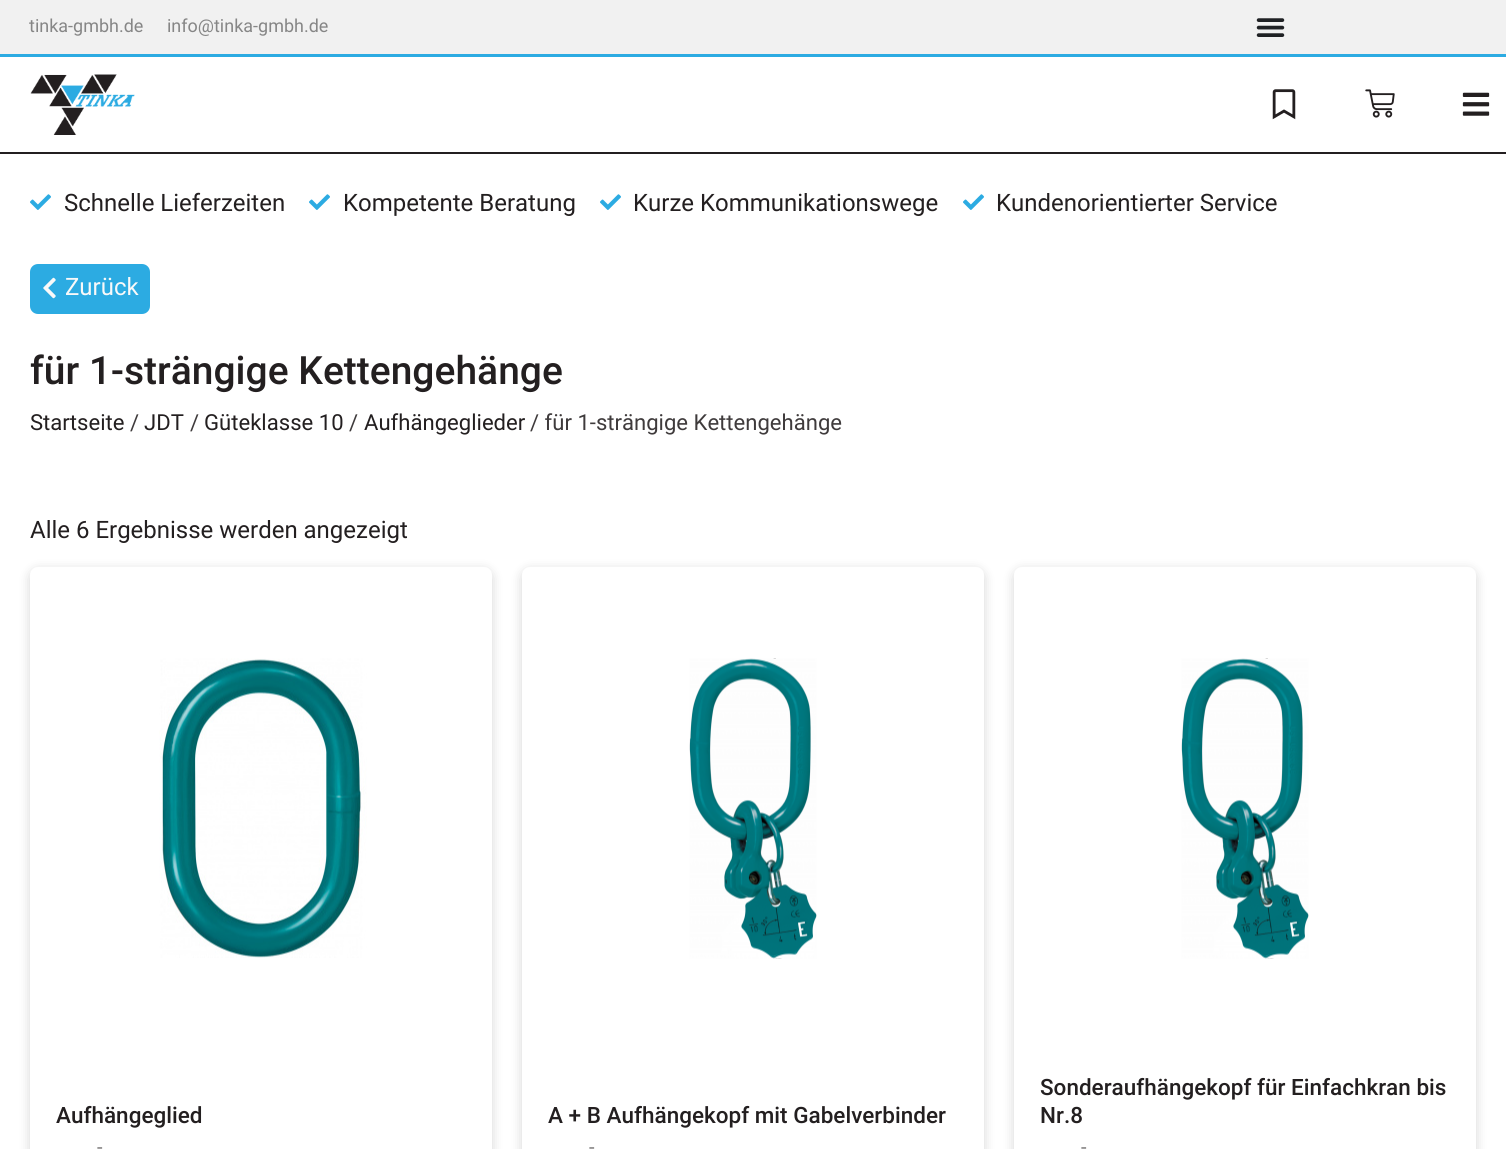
import math
import cairocffi as cairo

surface = cairo.ImageSurface(cairo.FORMAT_RGB24, 1506, 1149)
ctx = cairo.Context(surface)
options = cairo.FontOptions()
options.set_hint_metrics(cairo.HINT_METRICS_OFF)
options.set_hint_style(cairo.HINT_STYLE_NONE)
ctx.set_font_options(options)
ctx.set_miter_limit(4)


def rgb(r, g, b):
    ctx.set_source_rgb(r / 255, g / 255, b / 255)


def face(family, size, italic, bold):
    ctx.select_font_face(family, cairo.FONT_SLANT_ITALIC if italic else cairo.FONT_SLANT_NORMAL, cairo.FONT_WEIGHT_BOLD if bold else cairo.FONT_WEIGHT_NORMAL)
    ctx.set_font_size(size)


def label(x, y, s):
    ctx.move_to(x, y)
    ctx.show_text(s)


def rect(x, y, w, h):
    ctx.rectangle(x, y, w, h)
    ctx.fill()


def rrect(x, y, w, h, r):
    ctx.new_sub_path()
    for i, (u, v) in enumerate([(x + w - r, y + h - r), (x + r, y + h - r), (x + r, y + r), (x + w - r, y + r)]):
        ctx.arc(u, v, r, i * math.pi / 2, (i + 1) * math.pi / 2)
    ctx.close_path()


def soft_shadow(x, y, w, h, r, blur, alpha):
    ctx.push_group_with_content(cairo.CONTENT_ALPHA)
    ctx.set_operator(cairo.OPERATOR_SOURCE)
    for i in range(15, -16, -2):
        e = blur * i / 6
        if min(w, h) + 2 * e > 0:
            ctx.set_source_rgba(0, 0, 0, alpha * math.erfc((i - 1) / 8.5) / 2)
            rrect(x - e, y - e, w + 2 * e, h + 2 * e, max(0, min(r + e + blur * .6, min(w, h) / 2 + e)))
            ctx.fill()
    ctx.mask(ctx.pop_group())


def image(path, x, y, w, h):
    ctx.save()
    ctx.set_source_surface(cairo.ImageSurface.create_from_png(path), x, y)
    ctx.rectangle(x, y, w, h)
    ctx.fill()
    ctx.restore()


rgb(255, 255, 255)
ctx.paint()
rgb(241, 241, 241)
rect(0, 0, 1506, 54)
rgb(44, 171, 226)
rect(0, 54, 1506, 3)
face('Roboto', 18, 0, 0)
rgb(134, 134, 134)
label(29, 32, 'tinka-gmbh.de')
label(167, 32, 'info@tinka-gmbh.de')
image('image0.png', 1256, 18, 29, 19)
rgb(35, 31, 32)
rect(0, 152, 1506, 2)
image('image1.png', 30, 74, 105, 61)
image('image2.png', 1272, 89, 24, 31)
image('image3.png', 1365, 89, 30, 29)
image('image4.png', 1462, 92, 28, 24)
image('image5.png', 30, 194, 21, 16)
face('Roboto', 24, 0, 0)
label(64, 211, 'Schnelle Lieferzeiten')
image('image5.png', 309, 194, 21, 16)
label(343, 211, 'Kompetente Beratung')
image('image5.png', 600, 194, 21, 16)
label(633, 211, 'Kurze Kommunikationswege')
image('image5.png', 963, 194, 21, 16)
label(996, 211, 'Kundenorientierter Service')
rgb(44, 171, 226)
rrect(31, 265, 118, 48, 7)
ctx.fill_preserve()
ctx.stroke()
image('image6.png', 43, 277, 13, 22)
rgb(249, 249, 249)
label(65, 295, 'Zurück')
face('Roboto Medium', 39, 0, 0)
rgb(35, 31, 32)
label(30, 384, 'für 1-strängige Kettengehänge')
face('Roboto', 22.1, 0, 0)
label(30, 430, 'Startseite')
rgb(63, 59, 60)
label(130, 430, '/')
rgb(35, 31, 32)
label(144, 430, 'JDT')
rgb(63, 59, 60)
label(190, 430, '/')
rgb(35, 31, 32)
label(204, 430, 'Güteklasse 10')
rgb(63, 59, 60)
label(349, 430, '/')
rgb(35, 31, 32)
label(364, 430, 'Aufhängeglieder')
rgb(63, 59, 60)
label(530, 430, '/ für 1-strängige Kettengehänge')
face('Roboto', 24, 0, 0)
rgb(35, 31, 32)
label(30, 538, 'Alle 6 Ergebnisse werden angezeigt')
rgb(0, 0, 0)
soft_shadow(30, 570, 462, 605, 8, 6, 0.16)
rgb(255, 255, 255)
rrect(30, 567, 462, 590, 8)
ctx.fill()
image('image7.png', 145, 658, 229, 300)
face('Roboto Medium', 22.5, 0, 0)
rgb(35, 31, 32)
label(56, 1123, 'Aufhängeglied')
face('Roboto', 20, 0, 0)
rgb(123, 121, 121)
label(97, 1154, '-')
rgb(0, 0, 0)
soft_shadow(522, 570, 462, 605, 8, 6, 0.16)
rgb(255, 255, 255)
rrect(522, 567, 462, 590, 8)
ctx.fill()
image('image8.png', 624, 658, 258, 301)
image('image9.png', 624, 658, 258, 301)
face('Roboto Medium', 22.5, 0, 0)
rgb(35, 31, 32)
label(548, 1123, 'A + B Aufhängekopf mit Gabelverbinder')
face('Roboto', 20, 0, 0)
rgb(123, 121, 121)
label(589, 1154, '-')
rgb(0, 0, 0)
soft_shadow(1014, 570, 462, 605, 8, 6, 0.16)
rgb(255, 255, 255)
rrect(1014, 567, 462, 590, 8)
ctx.fill()
image('image8.png', 1116, 658, 258, 301)
image('image9.png', 1116, 658, 258, 301)
face('Roboto Medium', 22.5, 0, 0)
rgb(35, 31, 32)
label(1040, 1095, 'Sonderaufhängekopf für Einfachkran bis')
label(1040, 1123, 'Nr.8')
face('Roboto', 20, 0, 0)
rgb(123, 121, 121)
label(1081, 1154, '-')
surface.write_to_png('render.png')
